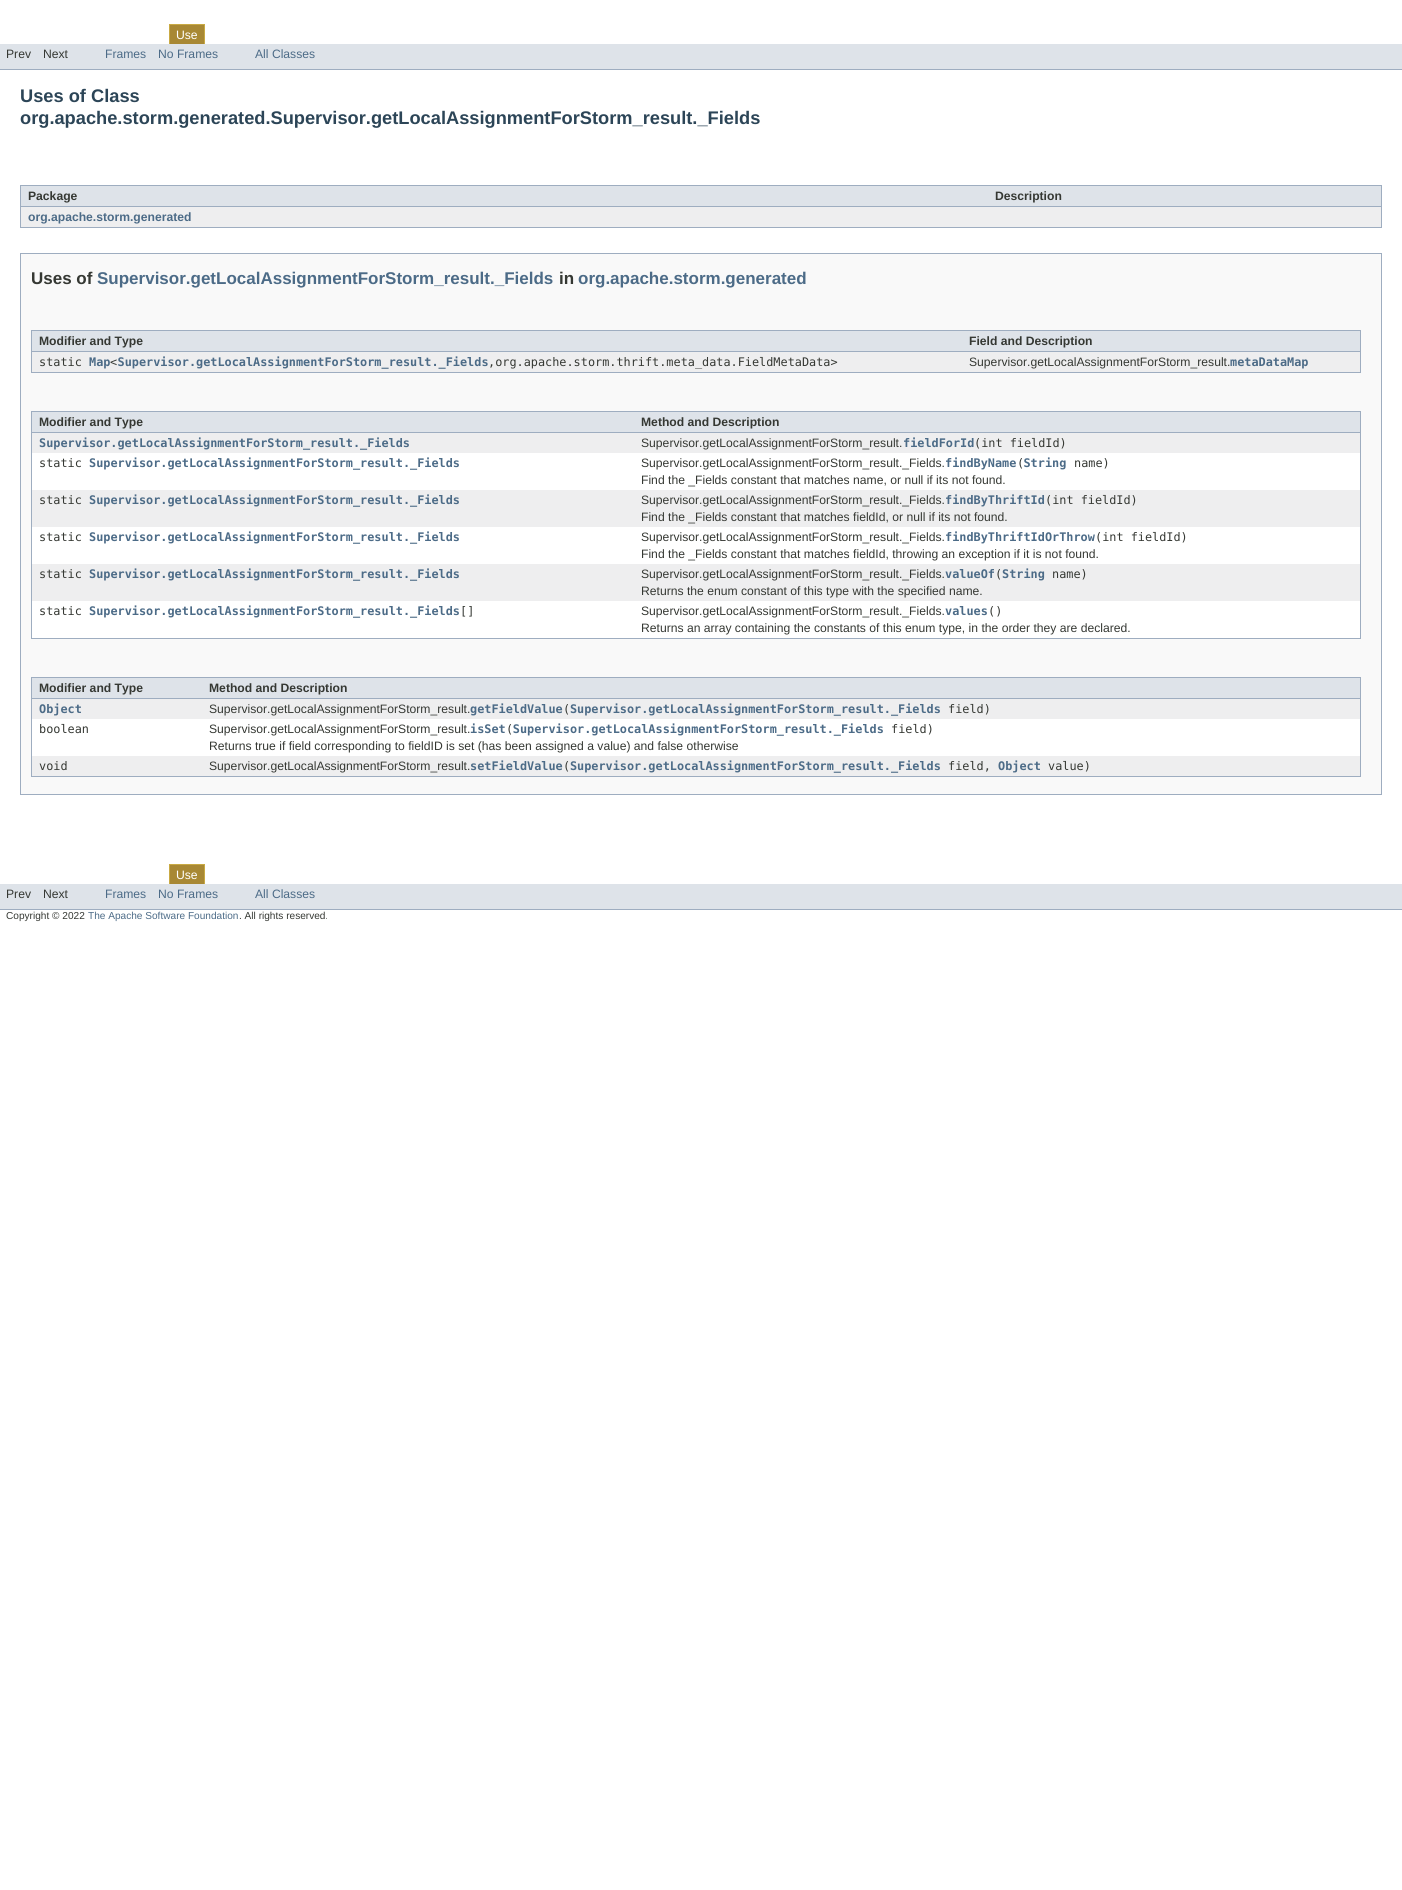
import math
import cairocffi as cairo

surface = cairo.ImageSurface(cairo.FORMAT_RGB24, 1402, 1890)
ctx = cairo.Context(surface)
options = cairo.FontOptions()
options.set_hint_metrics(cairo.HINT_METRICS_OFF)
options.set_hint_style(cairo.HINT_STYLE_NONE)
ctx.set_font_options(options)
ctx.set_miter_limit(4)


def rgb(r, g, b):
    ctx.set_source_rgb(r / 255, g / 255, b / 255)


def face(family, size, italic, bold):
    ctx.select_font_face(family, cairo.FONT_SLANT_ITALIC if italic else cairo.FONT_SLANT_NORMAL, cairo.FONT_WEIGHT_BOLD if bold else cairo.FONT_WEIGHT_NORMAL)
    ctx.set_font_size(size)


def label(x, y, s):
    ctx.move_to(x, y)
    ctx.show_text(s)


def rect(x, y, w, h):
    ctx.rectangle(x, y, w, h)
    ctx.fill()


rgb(255, 255, 255)
ctx.paint()
rgb(168, 136, 52)
rect(170, 25, 34, 19)
ctx.rectangle(169.5, 24.5, 35, 21)
rgb(201, 170, 68)
ctx.set_line_width(1)
ctx.stroke()
face('Liberation Sans', 12.15, 0, 0)
rgb(255, 255, 255)
label(176, 39, 'Use')
rgb(222, 227, 233)
rect(0, 44, 1402, 25)
rgb(158, 173, 192)
rect(0, 69, 1402, 1)
rgb(53, 56, 51)
label(6, 58, 'Prev')
label(43, 58, 'Next')
rgb(76, 107, 135)
label(105, 58, 'Frames')
label(158, 58, 'No Frames')
label(255, 58, 'All Classes')
face('Liberation Sans', 18.25, 0, 1)
rgb(44, 69, 87)
label(20, 102, 'Uses of Class')
label(20, 124, 'org.apache.storm.generated.Supervisor.getLocalAssignmentForStorm_result._Fields')
rgb(158, 173, 192)
rect(20, 227, 1362, 1)
rgb(222, 227, 233)
rect(21, 186, 1360, 20)
rgb(158, 173, 192)
rect(20, 185, 1362, 1)
rect(20, 206, 968, 1)
rect(20, 185, 1, 42)
face('Liberation Sans', 12.15, 0, 1)
rgb(53, 56, 51)
label(28, 200, 'Package')
rgb(158, 173, 192)
rect(1381, 185, 1, 42)
rect(988, 206, 394, 1)
rgb(53, 56, 51)
label(995, 200, 'Description')
rgb(238, 238, 239)
rect(21, 207, 1360, 20)
rgb(76, 107, 135)
label(28, 221, 'org.apache.storm.generated')
rgb(249, 249, 249)
ctx.rectangle(20.5, 253.5, 1361, 541)
ctx.fill_preserve()
rgb(158, 173, 192)
ctx.stroke()
face('Liberation Sans', 17, 0, 1)
rgb(53, 56, 51)
label(31, 284, 'Uses of')
rgb(76, 107, 135)
label(97, 284, 'Supervisor.getLocalAssignmentForStorm_result._Fields')
rgb(53, 56, 51)
label(559, 284, 'in')
rgb(76, 107, 135)
label(578, 284, 'org.apache.storm.generated')
rgb(158, 173, 192)
rect(31, 372, 1330, 1)
rgb(222, 227, 233)
rect(32, 331, 1328, 20)
rgb(158, 173, 192)
rect(31, 330, 1330, 1)
rect(31, 351, 931, 1)
rect(31, 330, 1, 42)
face('Liberation Sans', 12.15, 0, 1)
rgb(53, 56, 51)
label(39, 345, 'Modifier and Type')
rgb(158, 173, 192)
rect(1360, 330, 1, 42)
rect(962, 351, 399, 1)
rgb(53, 56, 51)
label(969, 345, 'Field and Description')
rgb(238, 238, 239)
rect(32, 352, 1328, 20)
face('DejaVu Sans Mono', 11.85, 0, 0)
rgb(53, 56, 51)
label(39, 366, 'static')
face('DejaVu Sans Mono', 11.85, 0, 1)
rgb(76, 107, 135)
label(89, 366, 'Map Supervisor.getLocalAssignmentForStorm_result._Fields')
face('DejaVu Sans Mono', 11.85, 0, 0)
rgb(53, 56, 51)
label(488, 366, ',org.apache.storm.thrift.meta_data.FieldMetaData>')
label(110, 366, '<')
face('Liberation Sans', 12.15, 0, 0)
label(969, 366, 'Supervisor.getLocalAssignmentForStorm_result.')
face('DejaVu Sans Mono', 11.85, 0, 1)
rgb(76, 107, 135)
label(1230, 366, 'metaDataMap')
rgb(158, 173, 192)
rect(31, 638, 1330, 1)
rgb(222, 227, 233)
rect(32, 412, 1328, 20)
rgb(158, 173, 192)
rect(31, 411, 1330, 1)
rect(31, 432, 603, 1)
rect(31, 411, 1, 227)
face('Liberation Sans', 12.15, 0, 1)
rgb(53, 56, 51)
label(39, 426, 'Modifier and Type')
rgb(158, 173, 192)
rect(1360, 411, 1, 227)
rect(634, 432, 727, 1)
rgb(53, 56, 51)
label(641, 426, 'Method and Description')
rgb(238, 238, 239)
rect(32, 433, 1328, 20)
face('DejaVu Sans Mono', 11.85, 0, 1)
rgb(76, 107, 135)
label(39, 447, 'Supervisor.getLocalAssignmentForStorm_result._Fields')
face('Liberation Sans', 12.15, 0, 0)
rgb(53, 56, 51)
label(641, 447, 'Supervisor.getLocalAssignmentForStorm_result.')
face('DejaVu Sans Mono', 11.85, 0, 1)
rgb(76, 107, 135)
label(903, 447, 'fieldForId')
face('DejaVu Sans Mono', 11.85, 0, 0)
rgb(53, 56, 51)
label(974, 447, '(int fieldId)')
rgb(255, 255, 255)
rect(32, 453, 1328, 37)
rgb(53, 56, 51)
label(39, 467, 'static')
face('DejaVu Sans Mono', 11.85, 0, 1)
rgb(76, 107, 135)
label(89, 467, 'Supervisor.getLocalAssignmentForStorm_result._Fields')
face('Liberation Sans', 12.15, 0, 0)
rgb(53, 56, 51)
label(641, 467, 'Supervisor.getLocalAssignmentForStorm_result._Fields.')
face('DejaVu Sans Mono', 11.85, 0, 1)
rgb(76, 107, 135)
label(945, 467, 'findByName String')
face('DejaVu Sans Mono', 11.85, 0, 0)
rgb(53, 56, 51)
label(1017, 467, '(')
label(1074, 467, 'name)')
face('Liberation Sans', 12.15, 0, 0)
label(641, 484, 'Find the _Fields constant that matches name, or null if its not found.')
rgb(238, 238, 239)
rect(32, 490, 1328, 37)
face('DejaVu Sans Mono', 11.85, 0, 0)
rgb(53, 56, 51)
label(39, 504, 'static')
face('DejaVu Sans Mono', 11.85, 0, 1)
rgb(76, 107, 135)
label(89, 504, 'Supervisor.getLocalAssignmentForStorm_result._Fields')
face('Liberation Sans', 12.15, 0, 0)
rgb(53, 56, 51)
label(641, 504, 'Supervisor.getLocalAssignmentForStorm_result._Fields.')
face('DejaVu Sans Mono', 11.85, 0, 1)
rgb(76, 107, 135)
label(945, 504, 'findByThriftId')
face('DejaVu Sans Mono', 11.85, 0, 0)
rgb(53, 56, 51)
label(1045, 504, '(int fieldId)')
face('Liberation Sans', 12.15, 0, 0)
label(641, 521, 'Find the _Fields constant that matches fieldId, or null if its not found.')
rgb(255, 255, 255)
rect(32, 527, 1328, 37)
face('DejaVu Sans Mono', 11.85, 0, 0)
rgb(53, 56, 51)
label(39, 541, 'static')
face('DejaVu Sans Mono', 11.85, 0, 1)
rgb(76, 107, 135)
label(89, 541, 'Supervisor.getLocalAssignmentForStorm_result._Fields')
face('Liberation Sans', 12.15, 0, 0)
rgb(53, 56, 51)
label(641, 541, 'Supervisor.getLocalAssignmentForStorm_result._Fields.')
face('DejaVu Sans Mono', 11.85, 0, 1)
rgb(76, 107, 135)
label(945, 541, 'findByThriftIdOrThrow')
face('DejaVu Sans Mono', 11.85, 0, 0)
rgb(53, 56, 51)
label(1095, 541, '(int fieldId)')
face('Liberation Sans', 12.15, 0, 0)
label(641, 558, 'Find the _Fields constant that matches fieldId, throwing an exception if it is not found.')
rgb(238, 238, 239)
rect(32, 564, 1328, 37)
face('DejaVu Sans Mono', 11.85, 0, 0)
rgb(53, 56, 51)
label(39, 578, 'static')
face('DejaVu Sans Mono', 11.85, 0, 1)
rgb(76, 107, 135)
label(89, 578, 'Supervisor.getLocalAssignmentForStorm_result._Fields')
face('Liberation Sans', 12.15, 0, 0)
rgb(53, 56, 51)
label(641, 578, 'Supervisor.getLocalAssignmentForStorm_result._Fields.')
face('DejaVu Sans Mono', 11.85, 0, 1)
rgb(76, 107, 135)
label(945, 578, 'valueOf String')
face('DejaVu Sans Mono', 11.85, 0, 0)
rgb(53, 56, 51)
label(995, 578, '(')
label(1052, 578, 'name)')
face('Liberation Sans', 12.15, 0, 0)
label(641, 595, 'Returns the enum constant of this type with the specified name.')
rgb(255, 255, 255)
rect(32, 601, 1328, 37)
face('DejaVu Sans Mono', 11.85, 0, 0)
rgb(53, 56, 51)
label(39, 615, 'static')
face('DejaVu Sans Mono', 11.85, 0, 1)
rgb(76, 107, 135)
label(89, 615, 'Supervisor.getLocalAssignmentForStorm_result._Fields')
face('DejaVu Sans Mono', 11.85, 0, 0)
rgb(53, 56, 51)
label(460, 615, '[]')
face('Liberation Sans', 12.15, 0, 0)
label(641, 615, 'Supervisor.getLocalAssignmentForStorm_result._Fields.')
face('DejaVu Sans Mono', 11.85, 0, 1)
rgb(76, 107, 135)
label(945, 615, 'values')
face('DejaVu Sans Mono', 11.85, 0, 0)
rgb(53, 56, 51)
label(988, 615, '()')
face('Liberation Sans', 12.15, 0, 0)
label(641, 632, 'Returns an array containing the constants of this enum type, in the order they are declared.')
rgb(158, 173, 192)
rect(31, 776, 1330, 1)
rgb(222, 227, 233)
rect(32, 678, 1328, 20)
rgb(158, 173, 192)
rect(31, 677, 1330, 1)
rect(31, 698, 171, 1)
rect(31, 677, 1, 99)
face('Liberation Sans', 12.15, 0, 1)
rgb(53, 56, 51)
label(39, 692, 'Modifier and Type')
rgb(158, 173, 192)
rect(1360, 677, 1, 99)
rect(202, 698, 1159, 1)
rgb(53, 56, 51)
label(209, 692, 'Method and Description')
rgb(238, 238, 239)
rect(32, 699, 1328, 20)
face('DejaVu Sans Mono', 11.85, 0, 1)
rgb(76, 107, 135)
label(39, 713, 'Object')
face('Liberation Sans', 12.15, 0, 0)
rgb(53, 56, 51)
label(209, 713, 'Supervisor.getLocalAssignmentForStorm_result.')
face('DejaVu Sans Mono', 11.85, 0, 1)
rgb(76, 107, 135)
label(470, 713, 'getFieldValue Supervisor.getLocalAssignmentForStorm_result._Fields')
face('DejaVu Sans Mono', 11.85, 0, 0)
rgb(53, 56, 51)
label(948, 713, 'field)')
label(563, 713, '(')
rgb(255, 255, 255)
rect(32, 719, 1328, 37)
rgb(53, 56, 51)
label(39, 733, 'boolean')
face('Liberation Sans', 12.15, 0, 0)
label(209, 733, 'Supervisor.getLocalAssignmentForStorm_result.')
face('DejaVu Sans Mono', 11.85, 0, 1)
rgb(76, 107, 135)
label(470, 733, 'isSet Supervisor.getLocalAssignmentForStorm_result._Fields')
face('DejaVu Sans Mono', 11.85, 0, 0)
rgb(53, 56, 51)
label(891, 733, 'field)')
label(506, 733, '(')
face('Liberation Sans', 12.15, 0, 0)
label(209, 750, 'Returns true if field corresponding to fieldID is set (has been assigned a value) and false otherwise')
rgb(238, 238, 239)
rect(32, 756, 1328, 20)
face('DejaVu Sans Mono', 11.85, 0, 0)
rgb(53, 56, 51)
label(39, 770, 'void')
face('Liberation Sans', 12.15, 0, 0)
label(209, 770, 'Supervisor.getLocalAssignmentForStorm_result.')
face('DejaVu Sans Mono', 11.85, 0, 1)
rgb(76, 107, 135)
label(470, 770, 'setFieldValue Supervisor.getLocalAssignmentForStorm_result._Fields')
face('DejaVu Sans Mono', 11.85, 0, 0)
rgb(53, 56, 51)
label(948, 770, 'field,')
face('DejaVu Sans Mono', 11.85, 0, 1)
rgb(76, 107, 135)
label(998, 770, 'Object')
face('DejaVu Sans Mono', 11.85, 0, 0)
rgb(53, 56, 51)
label(1048, 770, 'value)')
label(563, 770, '(')
rgb(168, 136, 52)
rect(170, 865, 34, 19)
ctx.rectangle(169.5, 864.5, 35, 21)
rgb(201, 170, 68)
ctx.stroke()
face('Liberation Sans', 12.15, 0, 0)
rgb(255, 255, 255)
label(176, 879, 'Use')
rgb(222, 227, 233)
rect(0, 884, 1402, 25)
rgb(158, 173, 192)
rect(0, 909, 1402, 1)
rgb(53, 56, 51)
label(6, 898, 'Prev')
label(43, 898, 'Next')
rgb(76, 107, 135)
label(105, 898, 'Frames')
label(158, 898, 'No Frames')
label(255, 898, 'All Classes')
face('Liberation Sans', 10.1, 0, 0)
rgb(53, 56, 51)
label(6, 919, 'Copyright © 2022')
rgb(76, 107, 135)
label(88, 919, 'The Apache Software Foundation')
rgb(53, 56, 51)
label(239, 919, '. All rights reserved.')
surface.write_to_png('render.png')
